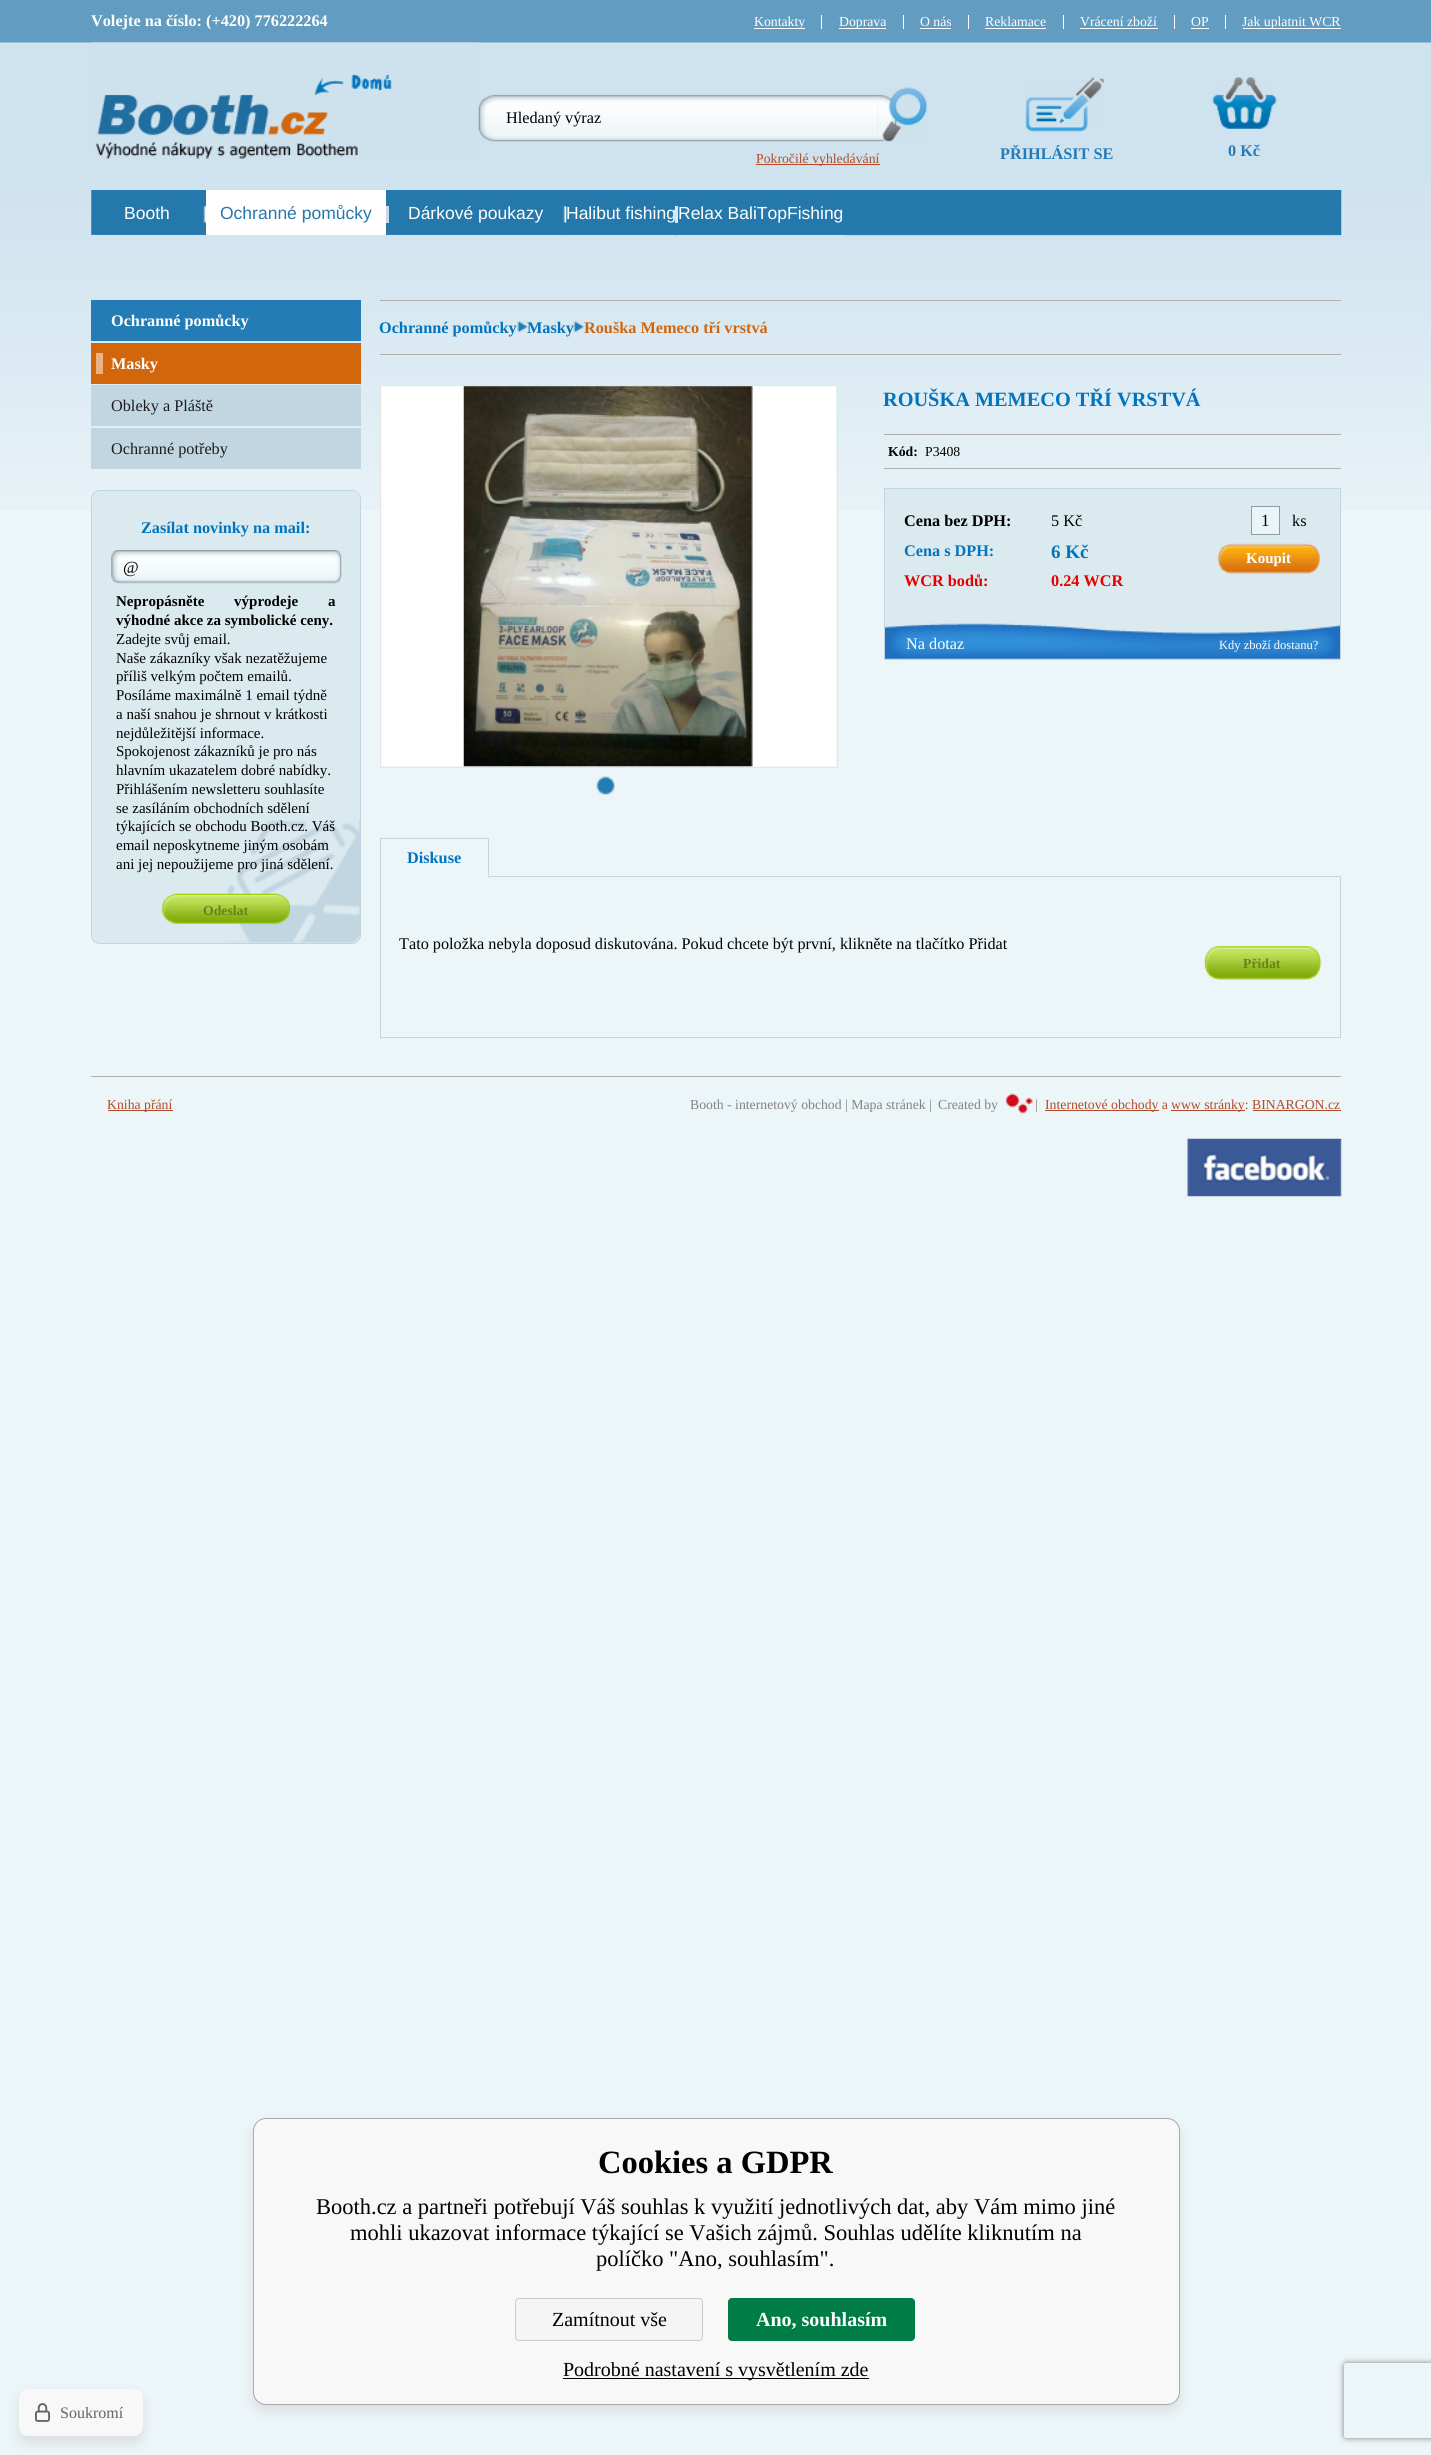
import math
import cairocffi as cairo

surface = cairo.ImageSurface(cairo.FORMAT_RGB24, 1431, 2455)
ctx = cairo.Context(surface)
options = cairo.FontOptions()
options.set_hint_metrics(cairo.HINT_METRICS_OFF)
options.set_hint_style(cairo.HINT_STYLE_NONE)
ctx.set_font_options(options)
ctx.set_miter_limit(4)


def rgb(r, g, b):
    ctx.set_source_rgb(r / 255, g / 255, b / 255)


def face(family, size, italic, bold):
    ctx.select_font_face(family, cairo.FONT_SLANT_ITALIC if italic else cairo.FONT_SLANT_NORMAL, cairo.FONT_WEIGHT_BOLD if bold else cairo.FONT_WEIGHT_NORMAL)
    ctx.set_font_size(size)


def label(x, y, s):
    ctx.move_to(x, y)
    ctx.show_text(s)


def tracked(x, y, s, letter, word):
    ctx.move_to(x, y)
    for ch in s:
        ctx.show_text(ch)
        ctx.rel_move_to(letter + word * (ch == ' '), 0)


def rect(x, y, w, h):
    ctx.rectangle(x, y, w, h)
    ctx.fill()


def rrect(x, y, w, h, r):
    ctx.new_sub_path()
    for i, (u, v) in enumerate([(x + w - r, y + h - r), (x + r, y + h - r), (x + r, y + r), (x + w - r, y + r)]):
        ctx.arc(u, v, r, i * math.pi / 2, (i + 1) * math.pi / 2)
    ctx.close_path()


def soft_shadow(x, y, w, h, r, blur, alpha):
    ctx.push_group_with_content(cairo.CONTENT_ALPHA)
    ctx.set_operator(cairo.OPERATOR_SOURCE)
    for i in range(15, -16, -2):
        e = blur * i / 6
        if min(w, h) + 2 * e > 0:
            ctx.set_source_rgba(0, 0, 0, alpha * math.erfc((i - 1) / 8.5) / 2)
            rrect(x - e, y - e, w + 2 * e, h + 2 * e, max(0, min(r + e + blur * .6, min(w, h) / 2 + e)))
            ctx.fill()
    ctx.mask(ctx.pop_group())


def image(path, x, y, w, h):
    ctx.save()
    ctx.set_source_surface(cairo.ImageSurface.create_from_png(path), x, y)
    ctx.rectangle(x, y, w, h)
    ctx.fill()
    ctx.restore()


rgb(236, 245, 248)
ctx.paint()
image('image0.png', 0, 0, 1431, 510)
face('Liberation Serif', 16.25, 0, 1)
rgb(255, 255, 255)
label(91, 26, 'Volejte na číslo: (+420) 776222264')
rect(754, 28, 51, 1)
face('Liberation Serif', 13.75, 0, 0)
label(754, 26, 'Kontakty')
rect(821, 15, 1, 14)
rect(839, 28, 47, 1)
label(839, 26, 'Doprava')
rect(903, 15, 1, 14)
label(920, 26, 'O nás')
rect(920, 28, 31, 1)
rect(968, 15, 1, 14)
label(985, 26, 'Reklamace')
rect(985, 28, 61, 1)
rect(1063, 15, 1, 14)
label(1080, 26, 'Vrácení zboží')
rect(1080, 28, 78, 1)
rect(1174, 15, 1, 14)
label(1191, 26, 'OP')
rect(1191, 28, 18, 1)
rect(1225, 15, 1, 14)
rect(1243, 28, 98, 1)
label(1242, 26, 'Jak uplatnit WCR')
image('image1.png', 91, 42, 388, 117)
image('image2.png', 478, 94, 400, 48)
face('Liberation Serif', 16.25, 0, 0)
rgb(0, 0, 0)
label(506, 123, 'Hledaný výraz')
image('image3.png', 877, 87, 51, 55)
rgb(178, 75, 40)
rect(756, 164, 124, 1)
face('Liberation Serif', 13.75, 0, 0)
label(756, 163, 'Pokročilé vyhledávání')
image('image4.png', 1025, 77, 79, 55)
face('Liberation Serif', 16.25, 0, 1)
rgb(35, 124, 183)
label(1000, 159, 'PŘIHLÁSIT SE')
image('image5.png', 1212, 77, 65, 52)
label(1228, 156, '0 Kč')
image('image6.png', 91, 190, 1251, 46)
rgb(211, 229, 241)
rect(91, 235, 113, 1)
face('Liberation Sans', 17.5, 0, 0)
rgb(255, 255, 255)
label(124, 219, 'Booth')
image('image7.png', 203, 206, 3, 17)
rect(206, 190, 180, 45)
rgb(211, 229, 241)
rect(206, 235, 180, 1)
rgb(37, 120, 171)
label(220, 219, 'Ochranné pomůcky')
rgb(202, 218, 231)
rect(386, 206, 3, 17)
rgb(211, 229, 241)
rect(389, 235, 175, 1)
rgb(255, 255, 255)
label(408, 219, 'Dárkové poukazy')
image('image8.png', 563, 206, 4, 17)
rgb(211, 229, 241)
rect(566, 235, 109, 1)
rgb(255, 255, 255)
label(566, 219, 'Halibut fishing')
rgb(221, 231, 240)
rect(675, 206, 3, 17)
rgb(211, 229, 241)
rect(678, 235, 166, 1)
rgb(255, 255, 255)
label(678, 219, 'Relax BaliTopFishing')
rgb(36, 124, 183)
rect(91, 300, 270, 41)
face('Liberation Serif', 16.25, 0, 1)
rgb(255, 255, 255)
label(111, 326, 'Ochranné pomůcky')
rgb(210, 102, 12)
rect(91, 343, 270, 41)
rgb(233, 179, 134)
rect(96, 353, 7, 21)
rgb(255, 255, 255)
label(111, 369, 'Masky')
rgb(194, 214, 225)
rect(91, 385, 270, 41)
face('Liberation Serif', 16.25, 0, 0)
rgb(28, 28, 28)
label(111, 411, 'Obleky a Pláště')
rgb(194, 214, 225)
rect(91, 428, 270, 41)
rgb(28, 28, 28)
label(111, 454, 'Ochranné potřeby')
rgb(219, 234, 239)
rrect(91.5, 490.5, 269, 453, 8.5)
ctx.fill_preserve()
rgb(194, 214, 225)
ctx.set_line_width(1)
ctx.stroke()
face('Liberation Serif', 16.25, 0, 1)
rgb(2, 116, 190)
label(141, 533, 'Zasílat novinky na mail:')
image('image9.png', 111, 550, 231, 34)
face('Liberation Serif', 17, 0, 0)
rgb(0, 0, 0)
label(123, 573, '@')
face('Liberation Serif', 15, 0, 1)
tracked(116, 606, 'Nepropásněte výprodeje a', 0, 26)
label(116, 625, 'výhodné akce za symbolické ceny.')
face('Liberation Serif', 15, 0, 0)
label(116, 644, 'Zadejte svůj email.')
label(116, 663, 'Naše zákazníky však nezatěžujeme')
label(116, 681, 'příliš velkým počtem emailů.')
label(116, 700, 'Posíláme maximálně 1 email týdně')
label(116, 719, 'a naší snahou je shrnout v krátkosti')
label(116, 738, 'nejdůležitější informace.')
label(116, 756, 'Spokojenost zákazníků je pro nás')
label(116, 775, 'hlavním ukazatelem dobré nabídky.')
label(116, 794, 'Přihlášením newsletteru souhlasíte')
label(116, 813, 'se zasíláním obchodních sdělení')
image('image11.png', 226, 818, 134, 125)
label(116, 831, 'týkajících se obchodu Booth.cz. Váš')
label(116, 850, 'email neposkytneme jiným osobám')
label(116, 869, 'ani jej nepoužijeme pro jiná sdělení.')
image('image10.png', 161, 893, 129, 31)
face('Liberation Serif', 13.75, 0, 1)
rgb(104, 131, 26)
label(203, 915, 'Odeslat')
rgb(174, 174, 174)
rect(380, 300, 961, 1)
rect(380, 354, 961, 1)
face('Liberation Serif', 16.25, 0, 1)
rgb(2, 116, 190)
label(379, 333, 'Ochranné pomůcky')
image('image12.png', 517, 321, 11, 12)
label(527, 333, 'Masky')
image('image13.png', 573, 321, 11, 12)
rgb(210, 102, 12)
label(584, 333, 'Rouška Memeco tří vrstvá')
ctx.rectangle(380.5, 385.5, 457, 382)
rgb(229, 229, 229)
ctx.stroke()
image('image14.png', 381, 386, 456, 381)
image('image15.png', 596, 776, 19, 19)
face('Liberation Serif', 20.3, 0, 1)
rgb(2, 116, 190)
label(883, 406, 'ROUŠKA MEMECO TŘÍ VRSTVÁ')
rgb(174, 174, 174)
rect(884, 434, 457, 1)
rect(884, 468, 457, 1)
face('Liberation Serif', 13.75, 0, 1)
rgb(0, 0, 0)
label(888, 456, 'Kód:')
face('Liberation Serif', 13.75, 0, 0)
label(925, 456, 'P3408')
rgb(219, 234, 239)
ctx.rectangle(884.5, 488.5, 456, 171)
ctx.fill_preserve()
rgb(194, 214, 225)
ctx.stroke()
face('Liberation Serif', 16.25, 0, 1)
rgb(0, 0, 0)
label(904, 526, 'Cena bez DPH:')
face('Liberation Serif', 16.25, 0, 0)
label(1051, 526, '5 Kč')
face('Liberation Serif', 16.25, 0, 1)
rgb(2, 116, 190)
label(904, 556, 'Cena s DPH:')
face('Liberation Serif', 19, 0, 1)
label(1051, 558, '6 Kč')
face('Liberation Serif', 16.25, 0, 1)
rgb(231, 0, 0)
label(904, 586, 'WCR bodů:')
label(1051, 586, '0.24 WCR')
rgb(235, 244, 247)
ctx.rectangle(1251.5, 506.5, 28, 28)
ctx.fill_preserve()
rgb(142, 157, 166)
ctx.stroke()
face('Liberation Serif', 17, 0, 0)
rgb(0, 0, 0)
label(1261, 526, '1')
face('Liberation Serif', 16.25, 0, 0)
label(1292, 526, 'ks')
image('image16.png', 1217, 543, 103, 31)
face('Liberation Serif', 15, 0, 1)
rgb(255, 255, 255)
label(1246, 563, 'Koupit')
image('image17.png', 885, 623, 455, 36)
face('Liberation Serif', 16.25, 0, 0)
label(906, 649, 'Na dotaz')
face('Liberation Serif', 12.5, 0, 0)
label(1219, 649, 'Kdy zboží dostanu?')
rgb(194, 214, 225)
rect(380, 838, 109, 1)
ctx.rectangle(380.5, 876.5, 960, 161)
ctx.stroke()
rect(488, 838, 1, 40)
rgb(236, 245, 248)
rect(380, 876, 109, 1)
rgb(194, 214, 225)
rect(380, 838, 1, 40)
face('Liberation Serif', 16.25, 0, 1)
rgb(2, 116, 190)
label(407, 863, 'Diskuse')
face('Liberation Serif', 16.25, 0, 0)
rgb(0, 0, 0)
label(399, 949, 'Tato položka nebyla doposud diskutována. Pokud chcete být první, klikněte na tlačítko Přidat')
image('image18.png', 1203, 946, 119, 34)
face('Liberation Serif', 13.75, 0, 1)
rgb(104, 131, 26)
label(1243, 968, 'Přidat')
rgb(174, 174, 174)
rect(91, 1076, 1250, 1)
rgb(178, 75, 40)
rect(108, 1110, 65, 1)
face('Liberation Serif', 13.75, 0, 0)
label(107, 1109, 'Kniha přání')
rgb(131, 131, 131)
label(690, 1109, 'Booth - internetový obchod | Mapa stránek |')
image('image19.png', 1006, 1093, 27, 21)
label(938, 1109, 'Created by')
label(1035, 1109, '|')
rgb(178, 75, 40)
rect(1045, 1110, 114, 1)
label(1045, 1109, 'Internetové obchody a')
rect(1171, 1110, 74, 1)
label(1171, 1109, 'www stránky: BINARGON.cz')
rect(1253, 1110, 88, 1)
image('image20.png', 1187, 1138, 155, 59)
rgb(200, 200, 200)
soft_shadow(253, 2124, 927, 287, 13, 6, 0.5)
rgb(248, 248, 248)
rrect(253.5, 2118.5, 926, 286, 12.5)
ctx.fill_preserve()
rgb(170, 170, 170)
ctx.stroke()
face('Liberation Serif', 32.5, 0, 1)
rgb(0, 0, 0)
label(598, 2173, 'Cookies a GDPR')
face('Liberation Serif', 22.5, 0, 0)
label(316, 2214, 'Booth.cz a partneři potřebují Váš souhlas k využití jednotlivých dat, aby Vám mimo jiné')
label(350, 2240, 'mohli ukazovat informace týkající se Vašich zájmů. Souhlas udělíte kliknutím na')
label(596, 2266, 'políčko "Ano, souhlasím".')
rgb(245, 245, 245)
rrect(515.5, 2298.5, 187, 42, 3.5)
ctx.fill_preserve()
rgb(202, 202, 202)
ctx.stroke()
face('Liberation Serif', 20, 0, 0)
rgb(0, 0, 0)
label(552, 2326, 'Zamítnout vše')
rgb(0, 124, 71)
rrect(728.5, 2298.5, 186, 42, 3.5)
ctx.fill_preserve()
ctx.stroke()
face('Liberation Serif', 20, 0, 1)
rgb(255, 255, 255)
label(756, 2326, 'Ano, souhlasím')
rgb(0, 0, 0)
rect(563, 2378, 306, 1)
face('Liberation Serif', 20, 0, 0)
label(563, 2376, 'Podrobné nastavení s vysvětlením zde')
rgb(200, 200, 200)
soft_shadow(19, 2395, 124, 48, 9, 6, 0.5)
rgb(248, 248, 248)
rrect(19, 2389, 124, 47, 9)
ctx.fill()
image('image21.png', 35, 2403, 15, 19)
face('Liberation Serif', 16, 0, 0)
rgb(100, 100, 100)
label(60, 2418, 'Soukromí')
ctx.save()
ctx.set_fill_rule(cairo.FILL_RULE_EVEN_ODD)
ctx.new_path()
ctx.move_to(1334, 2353)
ctx.line_to(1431, 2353)
ctx.line_to(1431, 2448)
ctx.line_to(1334, 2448)
ctx.close_path()
ctx.move_to(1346.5, 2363)
ctx.line_to(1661.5, 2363)
ctx.curve_to(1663, 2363, 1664, 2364, 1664, 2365.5)
ctx.line_to(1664, 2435.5)
ctx.curve_to(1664, 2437, 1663, 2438, 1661.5, 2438)
ctx.line_to(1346.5, 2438)
ctx.curve_to(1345, 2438, 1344, 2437, 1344, 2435.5)
ctx.line_to(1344, 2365.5)
ctx.curve_to(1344, 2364, 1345, 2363, 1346.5, 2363)
ctx.close_path()
ctx.clip()
rgb(128, 128, 128)
soft_shadow(1344, 2363, 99, 75, 2.5, 3, 1)
ctx.restore()
surface.write_to_png('render.png')
